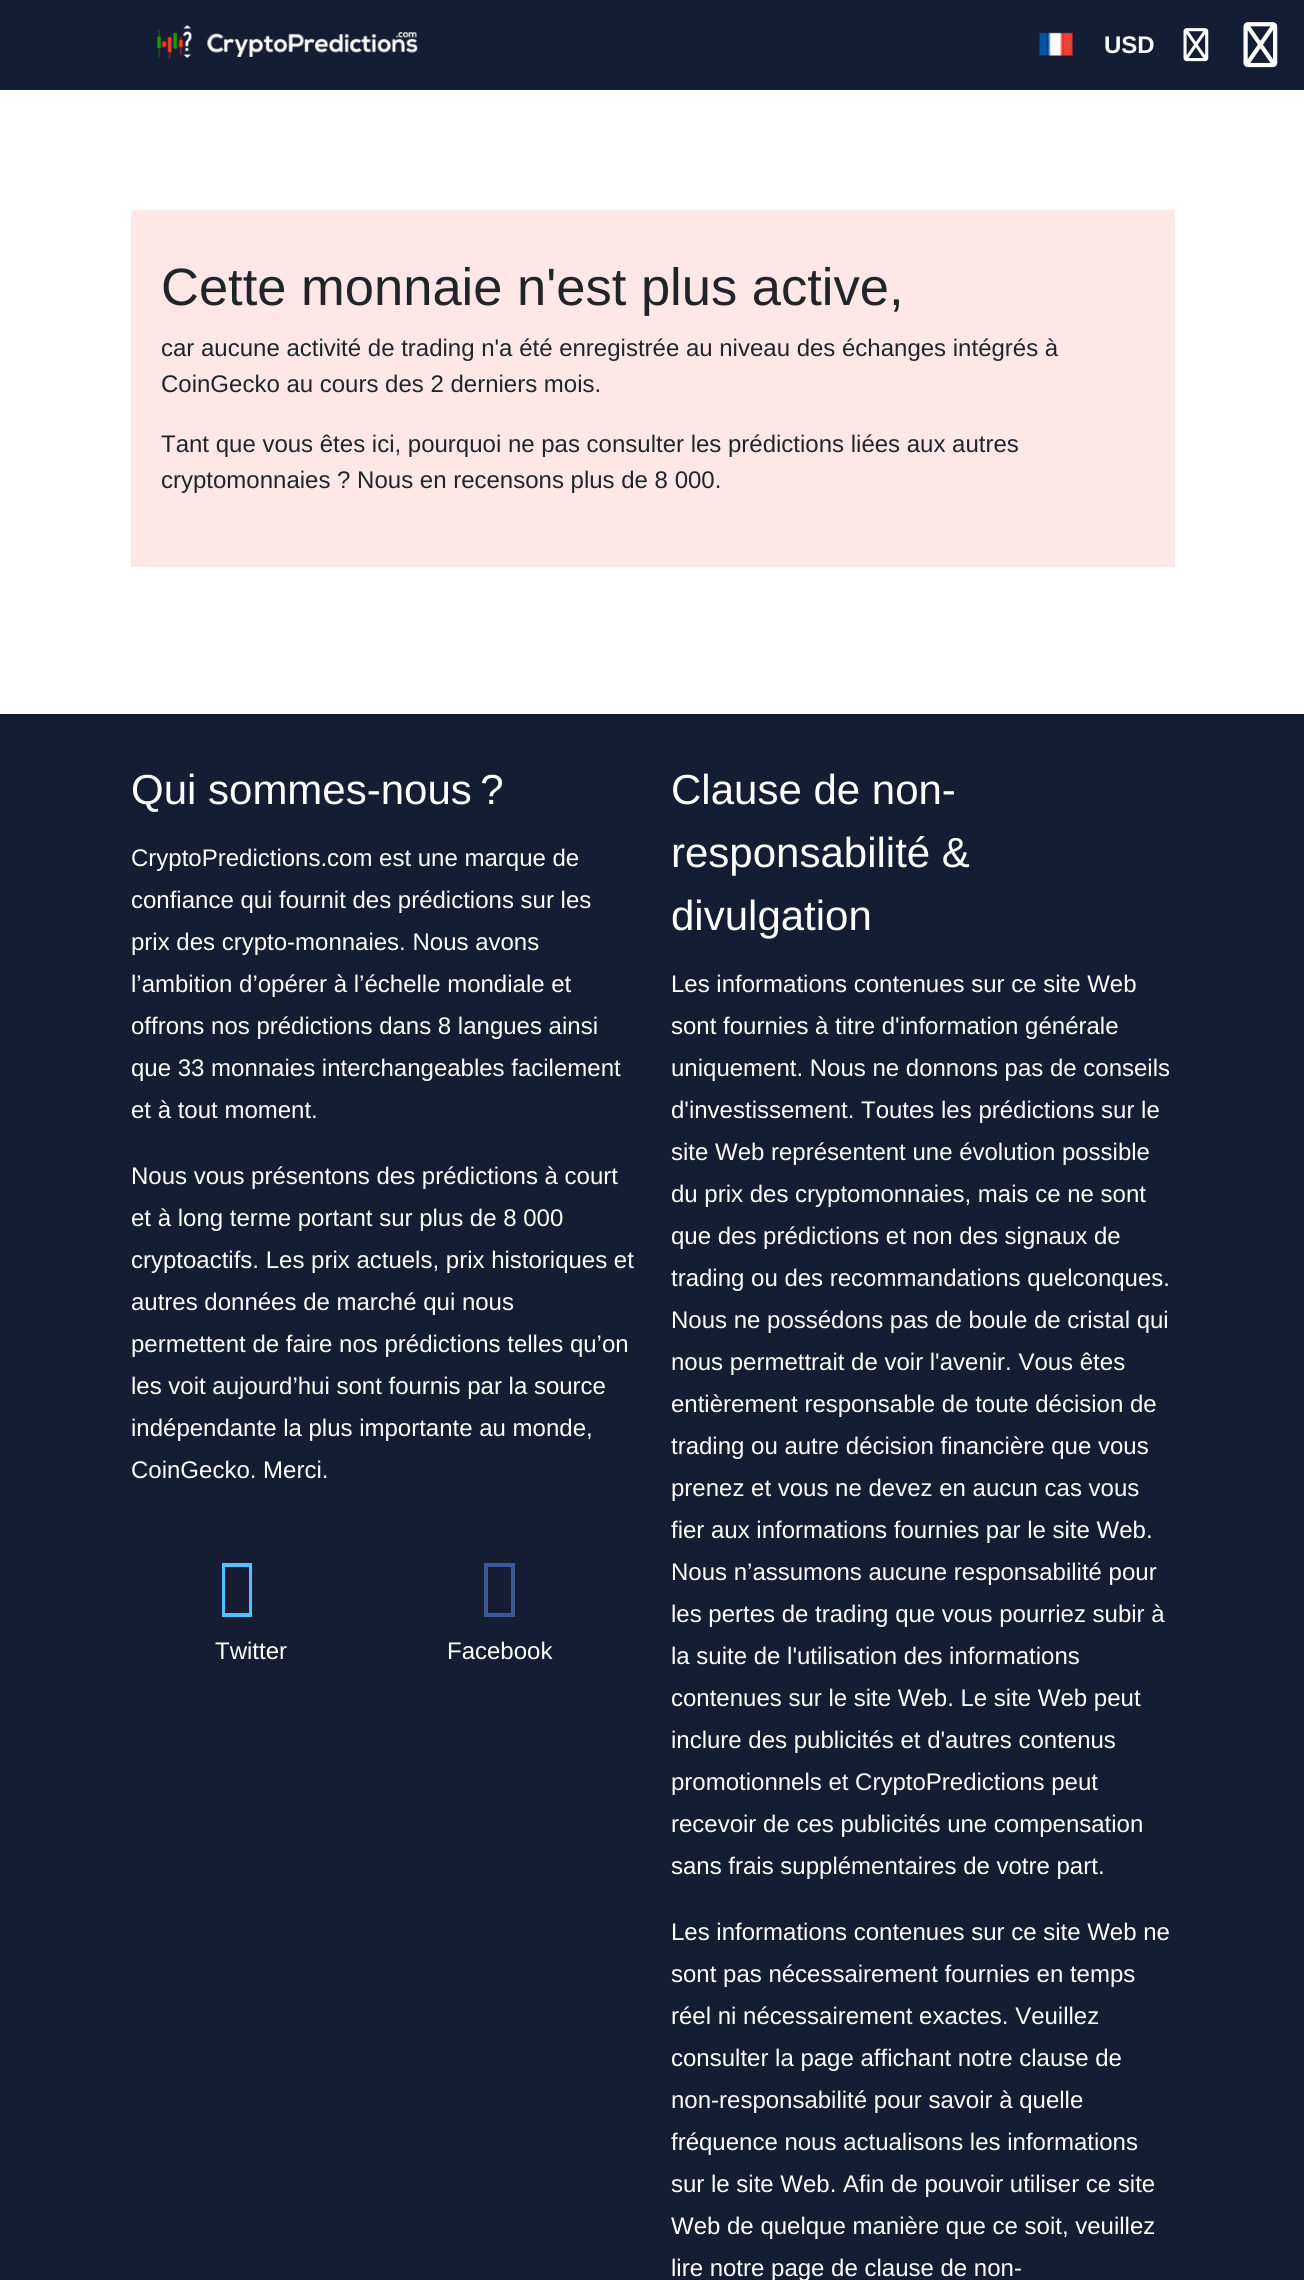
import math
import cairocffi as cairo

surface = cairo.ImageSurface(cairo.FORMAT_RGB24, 1304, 2280)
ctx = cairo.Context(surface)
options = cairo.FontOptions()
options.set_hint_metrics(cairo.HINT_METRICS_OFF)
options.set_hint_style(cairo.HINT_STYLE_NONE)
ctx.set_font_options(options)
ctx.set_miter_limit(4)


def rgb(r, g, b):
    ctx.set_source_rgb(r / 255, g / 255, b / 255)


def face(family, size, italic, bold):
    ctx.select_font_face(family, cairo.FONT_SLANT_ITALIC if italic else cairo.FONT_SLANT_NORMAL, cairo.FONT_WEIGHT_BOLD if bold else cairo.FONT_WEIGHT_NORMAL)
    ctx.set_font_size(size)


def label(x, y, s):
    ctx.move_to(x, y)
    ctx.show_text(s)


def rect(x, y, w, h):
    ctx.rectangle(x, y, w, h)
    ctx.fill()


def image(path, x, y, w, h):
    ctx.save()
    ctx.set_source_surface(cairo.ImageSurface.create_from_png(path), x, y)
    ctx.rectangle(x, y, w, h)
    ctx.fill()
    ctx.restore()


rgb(255, 255, 255)
ctx.paint()
rgb(20, 29, 51)
rect(0, 0, 1304, 90)
image('image0.png', 157, 25, 261, 34)
image('image1.png', 1039, 32, 34, 24)
face('Liberation Sans', 24, 0, 1)
rgb(255, 255, 255)
label(1104, 53, 'USD')
image('image2.png', 1183, 28, 26, 34)
image('image3.png', 1243, 22, 35, 46)
rgb(255, 231, 231)
rect(131, 210, 1044, 357)
face('Liberation Sans', 52.5, 0, 0)
rgb(33, 37, 41)
label(161, 305, 'Cette monnaie n\'est plus active,')
face('Liberation Sans', 24, 0, 0)
label(161, 356, 'car aucune activité de trading n\'a été enregistrée au niveau des échanges intégrés à')
label(161, 392, 'CoinGecko au cours des 2 derniers mois.')
label(161, 452, 'Tant que vous êtes ici, pourquoi ne pas consulter les prédictions liées aux autres')
label(161, 488, 'cryptomonnaies ? Nous en recensons plus de 8 000.')
rgb(20, 29, 51)
rect(0, 714, 1304, 1566)
face('Liberation Sans', 42, 0, 0)
rgb(255, 255, 255)
label(131, 804, 'Qui sommes-nous ?')
face('Liberation Sans', 24, 0, 0)
label(131, 866, 'CryptoPredictions.com est une marque de')
label(131, 908, 'confiance qui fournit des prédictions sur les')
label(131, 950, 'prix des crypto-monnaies. Nous avons')
label(131, 992, 'l’ambition d’opérer à l’échelle mondiale et')
label(131, 1034, 'offrons nos prédictions dans 8 langues ainsi')
label(131, 1076, 'que 33 monnaies interchangeables facilement')
label(131, 1118, 'et à tout moment.')
label(131, 1184, 'Nous vous présentons des prédictions à court')
label(131, 1226, 'et à long terme portant sur plus de 8 000')
label(131, 1268, 'cryptoactifs. Les prix actuels, prix historiques et')
label(131, 1310, 'autres données de marché qui nous')
label(131, 1352, 'permettent de faire nos prédictions telles qu’on')
label(131, 1394, 'les voit aujourd’hui sont fournis par la source')
label(131, 1436, 'indépendante la plus importante au monde,')
label(131, 1478, 'CoinGecko. Merci.')
rgb(82, 193, 255)
ctx.new_path()
ctx.move_to(222, 1617)
ctx.line_to(222, 1563)
ctx.line_to(252, 1563)
ctx.line_to(252, 1617)
ctx.close_path()
ctx.move_to(225, 1613)
ctx.line_to(249, 1613)
ctx.line_to(249, 1567)
ctx.line_to(225, 1567)
ctx.close_path()
ctx.fill()
rgb(255, 255, 255)
label(215, 1659, 'Twitter')
rgb(59, 89, 152)
ctx.new_path()
ctx.move_to(484, 1617)
ctx.line_to(484, 1563)
ctx.line_to(515, 1563)
ctx.line_to(515, 1617)
ctx.close_path()
ctx.move_to(488, 1613)
ctx.line_to(511, 1613)
ctx.line_to(511, 1567)
ctx.line_to(488, 1567)
ctx.close_path()
ctx.fill()
rgb(255, 255, 255)
label(447, 1659, 'Facebook')
face('Liberation Sans', 42, 0, 0)
label(671, 804, 'Clause de non-')
label(671, 867, 'responsabilité &')
label(671, 930, 'divulgation')
face('Liberation Sans', 24, 0, 0)
label(671, 992, 'Les informations contenues sur ce site Web')
label(671, 1034, 'sont fournies à titre d\'information générale')
label(671, 1076, 'uniquement. Nous ne donnons pas de conseils')
label(671, 1118, 'd\'investissement. Toutes les prédictions sur le')
label(671, 1160, 'site Web représentent une évolution possible')
label(671, 1202, 'du prix des cryptomonnaies, mais ce ne sont')
label(671, 1244, 'que des prédictions et non des signaux de')
label(671, 1286, 'trading ou des recommandations quelconques.')
label(671, 1328, 'Nous ne possédons pas de boule de cristal qui')
label(671, 1370, 'nous permettrait de voir l\'avenir. Vous êtes')
label(671, 1412, 'entièrement responsable de toute décision de')
label(671, 1454, 'trading ou autre décision financière que vous')
label(671, 1496, 'prenez et vous ne devez en aucun cas vous')
label(671, 1538, 'fier aux informations fournies par le site Web.')
label(671, 1580, 'Nous n’assumons aucune responsabilité pour')
label(671, 1622, 'les pertes de trading que vous pourriez subir à')
label(671, 1664, 'la suite de l\'utilisation des informations')
label(671, 1706, 'contenues sur le site Web. Le site Web peut')
label(671, 1748, 'inclure des publicités et d\'autres contenus')
label(671, 1790, 'promotionnels et CryptoPredictions peut')
label(671, 1832, 'recevoir de ces publicités une compensation')
label(671, 1874, 'sans frais supplémentaires de votre part.')
label(671, 1940, 'Les informations contenues sur ce site Web ne')
label(671, 1982, 'sont pas nécessairement fournies en temps')
label(671, 2024, 'réel ni nécessairement exactes. Veuillez')
label(671, 2066, 'consulter la page affichant notre clause de')
label(671, 2108, 'non-responsabilité pour savoir à quelle')
label(671, 2150, 'fréquence nous actualisons les informations')
label(671, 2192, 'sur le site Web. Afin de pouvoir utiliser ce site')
label(671, 2234, 'Web de quelque manière que ce soit, veuillez')
label(671, 2276, 'lire notre page de clause de non-')
surface.write_to_png('render.png')
